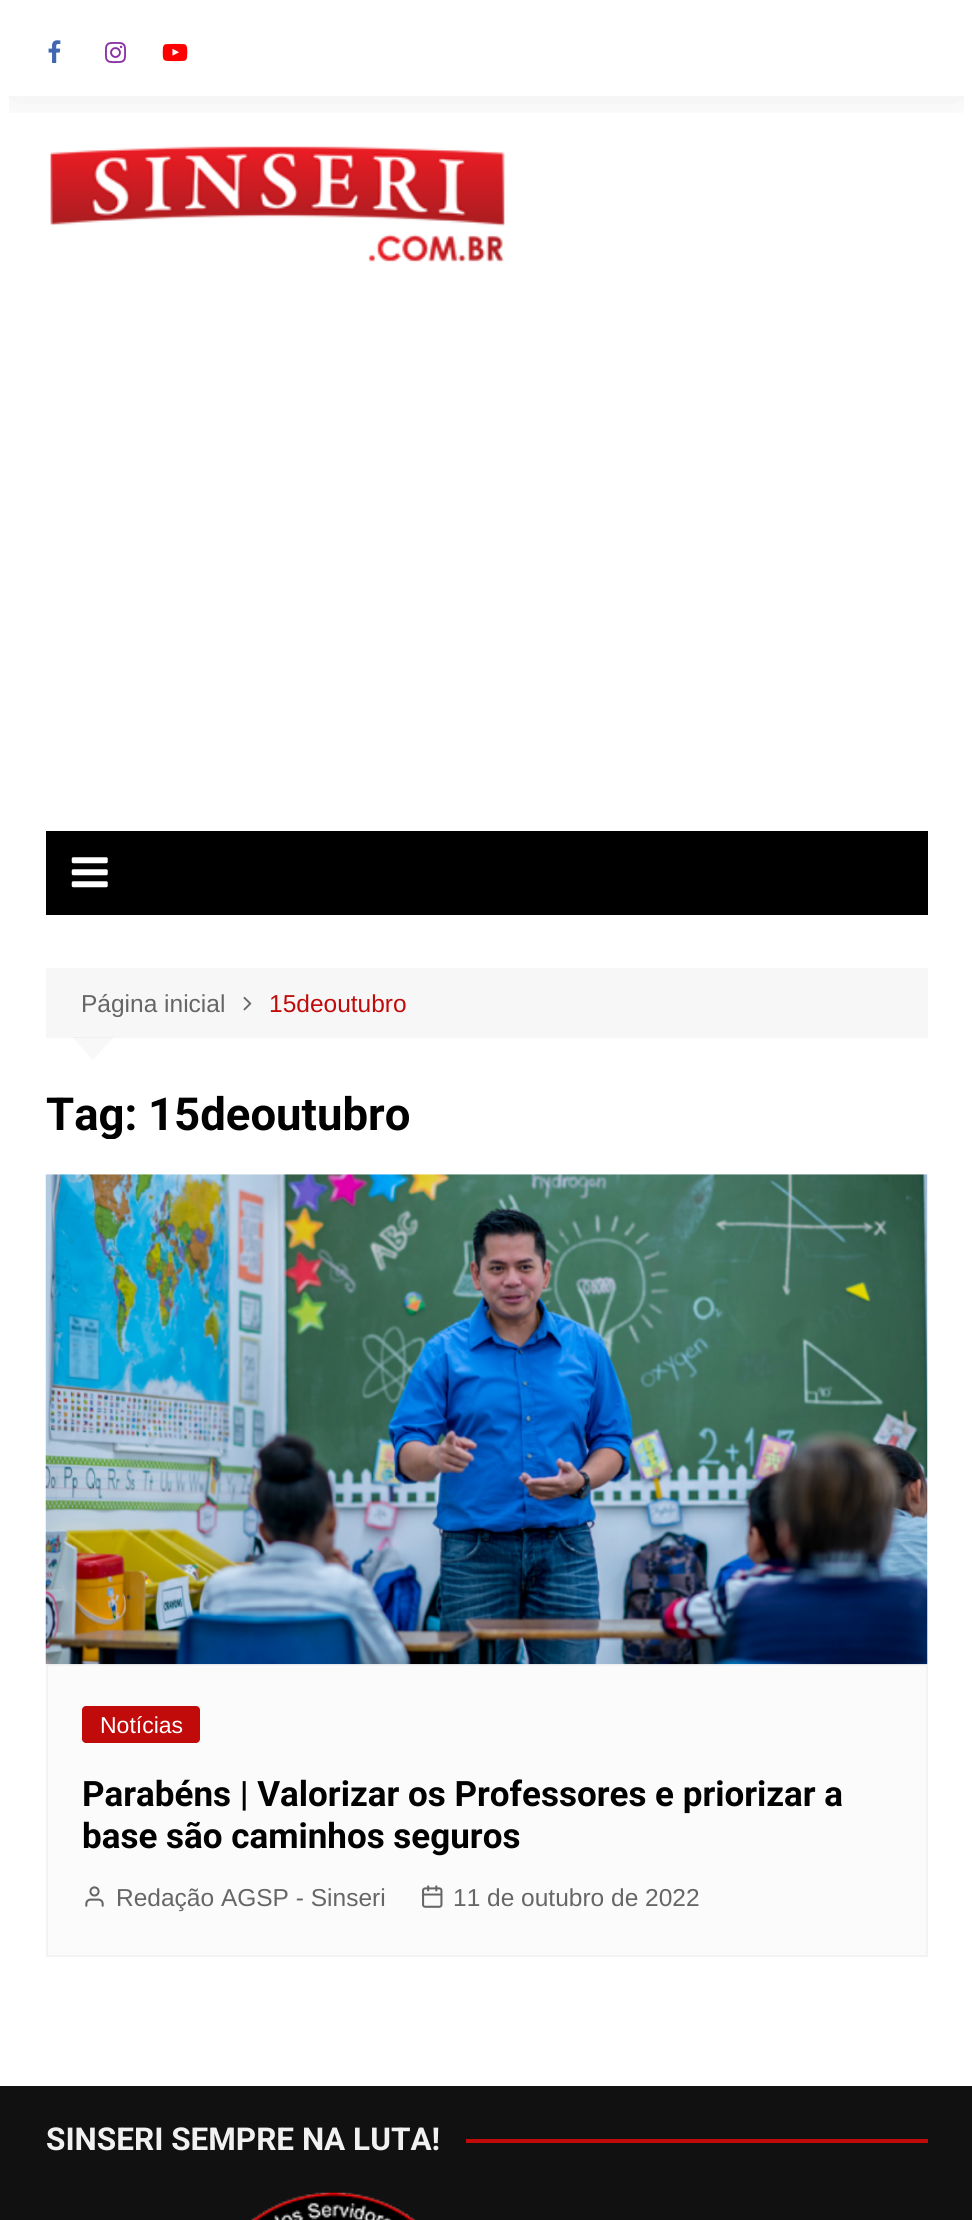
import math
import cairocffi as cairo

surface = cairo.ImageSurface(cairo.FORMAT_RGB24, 972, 2220)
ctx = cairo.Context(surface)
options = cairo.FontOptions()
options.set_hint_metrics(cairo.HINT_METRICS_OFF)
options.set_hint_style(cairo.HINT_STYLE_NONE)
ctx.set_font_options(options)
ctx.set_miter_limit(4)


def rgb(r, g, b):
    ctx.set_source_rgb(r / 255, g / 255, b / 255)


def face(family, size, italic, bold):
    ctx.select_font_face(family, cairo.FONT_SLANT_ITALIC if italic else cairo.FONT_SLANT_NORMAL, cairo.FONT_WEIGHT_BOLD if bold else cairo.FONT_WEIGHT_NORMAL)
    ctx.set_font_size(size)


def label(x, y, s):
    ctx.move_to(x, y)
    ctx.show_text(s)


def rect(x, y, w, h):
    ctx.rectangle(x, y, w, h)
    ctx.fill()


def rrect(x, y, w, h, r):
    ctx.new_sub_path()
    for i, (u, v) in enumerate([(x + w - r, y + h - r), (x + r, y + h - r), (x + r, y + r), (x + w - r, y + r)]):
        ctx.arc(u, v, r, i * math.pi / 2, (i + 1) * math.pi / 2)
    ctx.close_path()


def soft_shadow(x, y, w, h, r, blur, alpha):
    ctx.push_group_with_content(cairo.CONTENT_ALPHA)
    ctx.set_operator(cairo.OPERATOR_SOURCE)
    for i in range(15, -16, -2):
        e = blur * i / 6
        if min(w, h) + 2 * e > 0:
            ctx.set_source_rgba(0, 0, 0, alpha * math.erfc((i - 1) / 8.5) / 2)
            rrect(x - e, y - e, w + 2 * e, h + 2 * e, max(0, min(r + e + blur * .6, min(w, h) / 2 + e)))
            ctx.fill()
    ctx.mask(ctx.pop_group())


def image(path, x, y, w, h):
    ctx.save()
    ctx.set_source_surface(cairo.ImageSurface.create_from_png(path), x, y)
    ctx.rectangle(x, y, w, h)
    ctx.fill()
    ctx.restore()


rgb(255, 255, 255)
ctx.paint()
ctx.save()
ctx.rectangle(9, 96, 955, 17)
ctx.clip()
rgb(0, 0, 0)
soft_shadow(9, 12, 955, 79, 0, 26, 0.1)
ctx.restore()
image('image0.png', 48, 40, 13, 23)
image('image1.png', 105, 42, 21, 21)
image('image2.png', 162, 43, 26, 19)
image('image3.png', 50, 146, 455, 116)
rgb(0, 0, 0)
rect(46, 831, 882, 84)
image('image4.png', 71, 857, 37, 31)
rgb(247, 247, 247)
rect(46, 968, 882, 70)
face('Liberation Sans', 24.5, 0, 0)
rgb(102, 102, 102)
label(81, 1012, 'Página inicial')
image('image5.png', 243, 996, 9, 15)
rgb(193, 11, 10)
label(269, 1012, '15deoutubro')
ctx.set_source_rgba(0, 0, 0, 0.03)
ctx.new_path()
ctx.move_to(72, 1037)
ctx.line_to(114, 1037)
ctx.line_to(93, 1060)
ctx.close_path()
ctx.fill()
ctx.save()
ctx.rectangle(46, 1090, 882, 49)
ctx.clip()
face('Roboto', 45.5, 0, 1)
rgb(1, 1, 1)
label(46, 1130, 'Tag:')
ctx.restore()
face('Roboto', 45.5, 0, 1)
rgb(1, 1, 1)
label(148, 1130, '15deoutubro')
rgb(251, 251, 251)
ctx.rectangle(47, 1665, 880, 291)
ctx.fill_preserve()
rgb(243, 243, 243)
ctx.stroke()
image('image6.png', 45, 1174, 883, 491)
rgb(193, 11, 10)
rrect(82, 1706, 118, 37, 4)
ctx.fill()
face('Liberation Sans', 23, 0, 0)
rgb(255, 255, 255)
label(100, 1733, 'Notícias')
face('Roboto', 35, 0, 1)
rgb(1, 1, 1)
label(82, 1806, 'Parabéns | Valorizar os Professores e priorizar a')
label(82, 1848, 'base são caminhos seguros')
image('image7.png', 85, 1886, 19, 21)
face('Liberation Sans', 24.5, 0, 0)
rgb(102, 102, 102)
label(116, 1906, 'Redação AGSP - Sinseri')
image('image8.png', 422, 1885, 21, 23)
label(453, 1906, '11 de outubro de 2022')
rgb(17, 17, 17)
rect(0, 2086, 972, 134)
face('Roboto', 31.5, 0, 1)
rgb(241, 241, 241)
label(46, 2150, 'SINSERI SEMPRE NA LUTA!')
rgb(193, 11, 10)
rect(466, 2139, 462, 4)
image('image9.png', 251, 2192, 165, 28)
surface.write_to_png('render.png')
